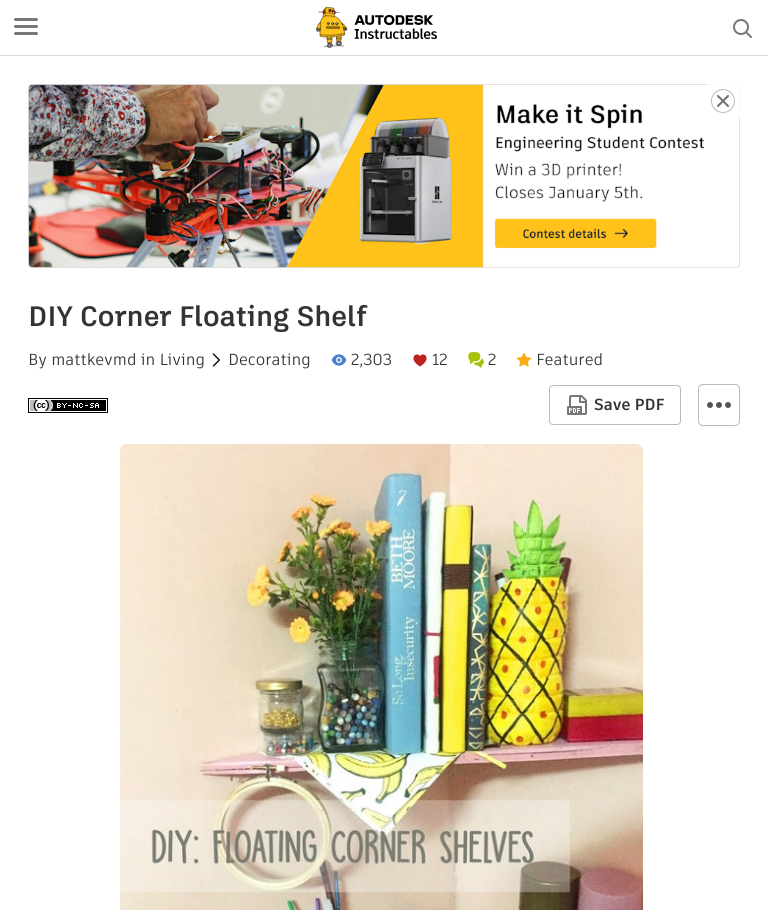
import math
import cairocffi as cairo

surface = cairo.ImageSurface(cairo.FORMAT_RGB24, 768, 910)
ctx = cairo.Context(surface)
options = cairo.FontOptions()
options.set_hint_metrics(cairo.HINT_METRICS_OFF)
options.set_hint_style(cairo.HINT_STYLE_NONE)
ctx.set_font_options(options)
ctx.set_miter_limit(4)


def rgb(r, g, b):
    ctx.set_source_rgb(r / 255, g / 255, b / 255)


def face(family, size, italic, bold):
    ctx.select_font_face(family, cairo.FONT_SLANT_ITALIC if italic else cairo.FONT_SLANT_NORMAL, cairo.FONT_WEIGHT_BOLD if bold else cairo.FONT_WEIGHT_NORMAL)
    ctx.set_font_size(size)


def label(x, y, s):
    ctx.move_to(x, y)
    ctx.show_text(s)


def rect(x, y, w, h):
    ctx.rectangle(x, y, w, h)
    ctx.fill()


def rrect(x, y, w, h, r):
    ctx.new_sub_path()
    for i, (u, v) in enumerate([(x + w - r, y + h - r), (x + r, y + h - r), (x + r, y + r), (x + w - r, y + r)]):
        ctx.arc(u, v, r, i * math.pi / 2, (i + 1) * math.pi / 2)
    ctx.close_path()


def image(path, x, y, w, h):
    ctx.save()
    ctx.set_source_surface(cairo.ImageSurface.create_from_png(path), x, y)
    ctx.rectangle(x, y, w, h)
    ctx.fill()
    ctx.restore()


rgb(255, 255, 255)
ctx.paint()
rgb(221, 221, 221)
rect(0, 55, 768, 1)
rgb(119, 119, 119)
rrect(14, 18, 24, 3, 1.5)
ctx.fill()
rrect(14, 25, 24, 3, 1.5)
ctx.fill()
rrect(14, 32, 24, 3, 1.5)
ctx.fill()
image('image0.png', 316, 7, 121, 41)
image('image1.png', 733, 19, 19, 19)
image('image2.png', 28, 84, 712, 184)
ctx.set_source_rgba(1, 1, 1, 0.8)
ctx.new_path()
ctx.move_to(706, 84)
ctx.line_to(740, 84)
ctx.line_to(740, 118)
ctx.line_to(710, 118)
ctx.curve_to(708, 118, 706, 116, 706, 114)
ctx.close_path()
ctx.fill()
image('image3.png', 711, 89, 24, 24)
face('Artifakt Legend', 28, 0, 1)
rgb(51, 51, 51)
label(28, 326, 'DIY Corner Floating Shelf')
face('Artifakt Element', 16, 0, 0)
label(28, 365, 'By mattkevmd in Living')
image('image4.png', 212, 353, 8, 14)
label(228, 365, 'Decorating')
image('image5.png', 331, 354, 16, 12)
label(351, 365, '2,303')
rgb(189, 33, 32)
ctx.new_path()
ctx.move_to(420, 366.5)
ctx.curve_to(407.5, 359, 416, 351, 420, 356)
ctx.curve_to(424, 351, 432.5, 359, 420, 366.5)
ctx.fill()
rgb(51, 51, 51)
label(432, 365, '12')
image('image6.png', 468, 352, 16, 16)
label(488, 365, '2')
image('image7.png', 516, 352, 16, 15)
label(536, 365, 'Featured')
image('image8.png', 28, 398, 80, 15)
rrect(549.5, 385.5, 131, 39, 3.5)
rgb(187, 187, 187)
ctx.set_line_width(1)
ctx.stroke()
image('image9.png', 567, 395, 20, 20)
face('Artifakt Element', 16, 0, 1)
rgb(51, 51, 51)
label(594, 410, 'Save PDF')
rrect(698.5, 384.5, 41, 41, 4.5)
rgb(187, 187, 187)
ctx.stroke()
image('image10.png', 707, 402, 24, 6)
image('image11.png', 120, 444, 523, 466)
surface.write_to_png('render.png')
